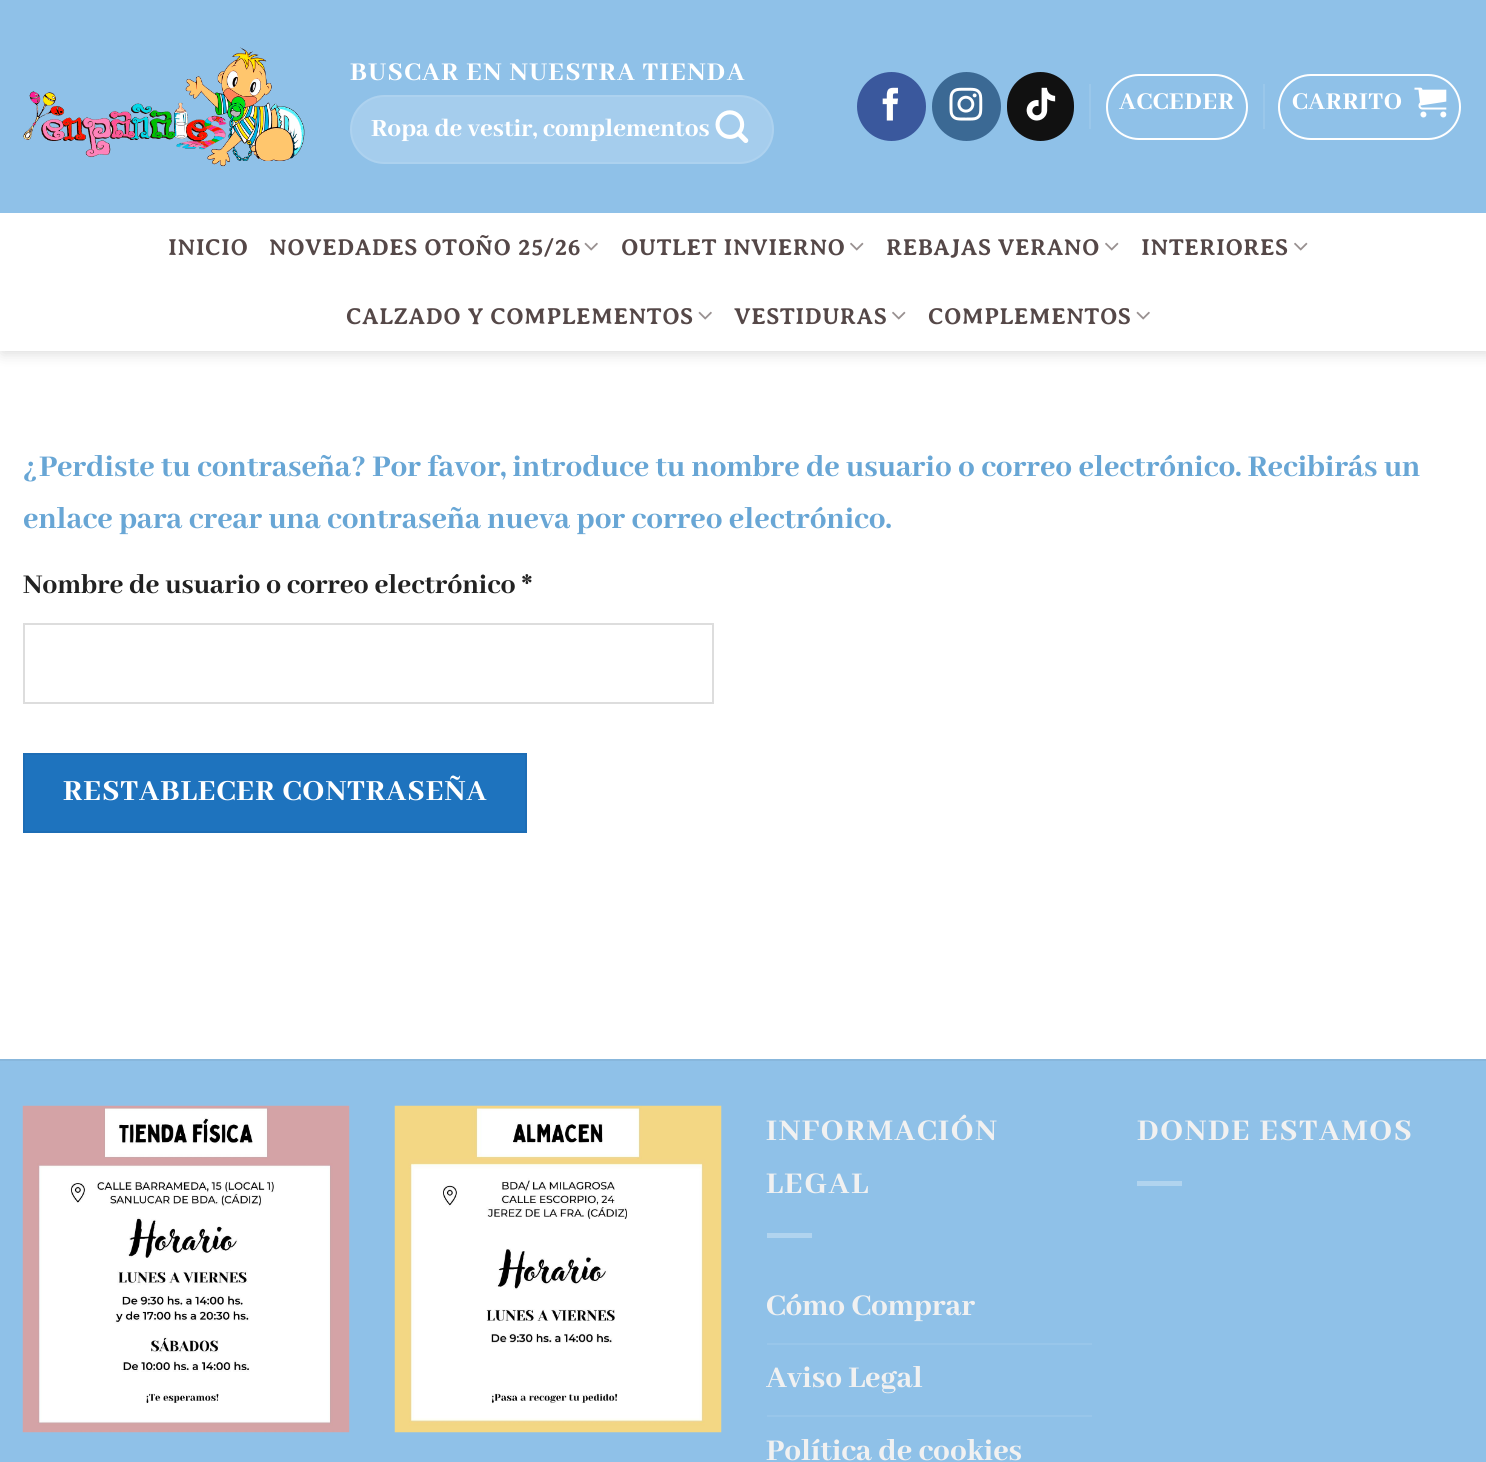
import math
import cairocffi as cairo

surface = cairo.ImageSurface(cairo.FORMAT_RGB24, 1486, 1462)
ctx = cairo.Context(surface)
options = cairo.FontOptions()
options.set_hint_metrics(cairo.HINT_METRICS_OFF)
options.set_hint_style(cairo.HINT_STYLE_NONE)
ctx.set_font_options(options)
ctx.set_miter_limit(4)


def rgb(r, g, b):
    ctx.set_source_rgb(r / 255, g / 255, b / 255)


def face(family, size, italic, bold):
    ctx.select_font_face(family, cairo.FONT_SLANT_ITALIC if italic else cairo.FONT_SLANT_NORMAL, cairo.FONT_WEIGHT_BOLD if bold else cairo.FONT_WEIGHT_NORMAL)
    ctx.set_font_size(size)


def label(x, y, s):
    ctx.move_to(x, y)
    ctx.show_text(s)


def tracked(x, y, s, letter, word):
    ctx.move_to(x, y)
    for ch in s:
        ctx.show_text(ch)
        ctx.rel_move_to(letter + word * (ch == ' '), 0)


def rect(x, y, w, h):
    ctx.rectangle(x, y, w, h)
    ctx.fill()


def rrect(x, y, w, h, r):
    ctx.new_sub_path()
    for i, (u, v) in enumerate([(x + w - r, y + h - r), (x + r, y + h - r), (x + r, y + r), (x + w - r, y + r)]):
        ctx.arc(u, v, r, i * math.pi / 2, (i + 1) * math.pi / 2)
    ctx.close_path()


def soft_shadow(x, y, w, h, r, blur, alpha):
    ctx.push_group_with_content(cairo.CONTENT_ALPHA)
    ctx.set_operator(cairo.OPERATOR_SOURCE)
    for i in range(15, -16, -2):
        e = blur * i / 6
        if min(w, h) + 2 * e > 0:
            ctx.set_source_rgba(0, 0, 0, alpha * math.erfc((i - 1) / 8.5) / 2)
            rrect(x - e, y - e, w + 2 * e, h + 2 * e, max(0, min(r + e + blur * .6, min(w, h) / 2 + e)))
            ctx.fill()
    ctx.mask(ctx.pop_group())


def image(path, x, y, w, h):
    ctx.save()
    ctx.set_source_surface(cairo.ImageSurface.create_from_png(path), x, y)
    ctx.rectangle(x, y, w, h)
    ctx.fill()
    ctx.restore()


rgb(255, 255, 255)
ctx.paint()
rgb(0, 0, 0)
soft_shadow(2, 2, 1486, 351, 0, 7.5, 0.15)
rgb(143, 193, 232)
rect(0, 0, 1486, 213)
image('image0.png', 23, 47, 282, 120)
face('Abhaya Libre ExtraBold ExtraBold', 28.1, 0, 0)
rgb(255, 255, 255)
tracked(350, 80, 'BUSCAR EN NUESTRA TIENDA', 1.4, 0)
rgb(165, 205, 237)
rrect(350, 95, 424, 69, 34.5)
ctx.fill()
rrect(351, 96, 422, 67, 33.5)
ctx.set_source_rgba(1, 1, 1, 0.09)
ctx.stroke()
face('Abhaya Libre ExtraBold ExtraBold', 27.25, 0, 0)
rgb(255, 255, 255)
label(371, 136, 'Ropa de vestir, complementos')
image('image1.png', 715, 110, 34, 33)
rgb(58, 88, 157)
ctx.arc(891.5, 106.5, 33.5, 0, 2 * math.pi)
ctx.fill_preserve()
ctx.stroke()
image('image2.png', 882, 87, 16, 34)
rgb(59, 105, 148)
ctx.arc(966.5, 106.5, 33.5, 0, 2 * math.pi)
ctx.fill_preserve()
ctx.stroke()
image('image3.png', 949, 87, 34, 34)
rgb(17, 17, 17)
rrect(1008, 73, 65, 67, 32.5)
ctx.fill_preserve()
ctx.stroke()
image('image4.png', 1026, 87, 30, 34)
rgb(154, 199, 234)
rect(1089, 84, 2, 45)
rrect(1107, 75, 140, 64, 32)
rgb(255, 255, 255)
ctx.stroke()
face('Abhaya Libre ExtraBold ExtraBold', 26.5, 0, 0)
tracked(1119, 109, 'ACCEDER', 0.75, 0)
rgb(154, 199, 234)
rect(1263, 84, 2, 45)
rrect(1279, 75, 181, 64, 32)
rgb(255, 255, 255)
ctx.stroke()
tracked(1292, 109, 'CARRITO', 0.75, 0)
image('image5.png', 1414, 87, 33, 31)
rect(0, 213, 1486, 138)
face('Averia Serif Libre', 23.2, 0, 1)
rgb(85, 72, 72)
tracked(168, 255, 'INICIO', 0.5, 0)
tracked(269, 255, 'NOVEDADES OTOÑO 25/26', 0.5, 0)
image('image6.png', 584, 242, 14, 9)
tracked(621, 255, 'OUTLET INVIERNO', 0.5, 0)
image('image7.png', 850, 242, 14, 9)
tracked(886, 255, 'REBAJAS VERANO', 0.5, 0)
image('image7.png', 1105, 242, 14, 9)
tracked(1141, 255, 'INTERIORES', 0.5, 0)
image('image7.png', 1294, 242, 14, 9)
tracked(346, 324, 'CALZADO Y COMPLEMENTOS', 0.5, 0)
image('image6.png', 698, 311, 14, 9)
tracked(734, 324, 'VESTIDURAS', 0.5, 0)
image('image7.png', 892, 311, 14, 9)
tracked(928, 324, 'COMPLEMENTOS', 0.5, 0)
image('image6.png', 1136, 311, 14, 9)
face('Abhaya Libre ExtraBold ExtraBold', 33.1, 0, 0)
rgb(104, 166, 213)
label(23, 476, '¿Perdiste tu contraseña? Por favor, introduce tu nombre de usuario o correo electrónico. Recibirás un')
label(23, 528, 'enlace para crear una contraseña nueva por correo electrónico.')
face('Abhaya Libre ExtraBold ExtraBold', 29.8, 0, 0)
rgb(34, 34, 34)
label(23, 593, 'Nombre de usuario o correo electrónico *')
ctx.rectangle(24, 624, 689, 79)
rgb(221, 221, 221)
ctx.stroke()
rgb(30, 115, 190)
ctx.rectangle(24, 754, 502, 78)
ctx.fill_preserve()
rgb(29, 109, 181)
ctx.stroke()
face('Abhaya Libre ExtraBold ExtraBold', 32.1, 0, 0)
rgb(255, 255, 255)
tracked(63, 800, 'RESTABLECER CONTRASEÑA', 1, 0)
rgb(143, 193, 232)
rect(0, 1061, 1486, 401)
rgb(136, 183, 220)
rect(0, 1059, 1486, 2)
image('image8.png', 22, 1105, 328, 328)
image('image9.png', 394, 1105, 328, 328)
face('Abhaya Libre ExtraBold ExtraBold', 33.1, 0, 0)
rgb(241, 241, 241)
tracked(766, 1140, 'INFORMACIÓN', 1.7, 0)
tracked(766, 1193, 'LEGAL', 1.7, 0)
rgb(177, 212, 239)
rect(767, 1233, 45, 5)
rgb(241, 241, 241)
label(766, 1315, 'Cómo Comprar')
rgb(152, 198, 234)
rect(767, 1343, 325, 2)
rgb(241, 241, 241)
label(766, 1387, 'Aviso Legal')
rgb(152, 198, 234)
rect(767, 1415, 325, 2)
rgb(241, 241, 241)
label(766, 1460, 'Política de cookies')
tracked(1137, 1140, 'DONDE ESTAMOS', 1.7, 0)
rgb(177, 212, 239)
rect(1137, 1181, 45, 5)
surface.write_to_png('render.png')
